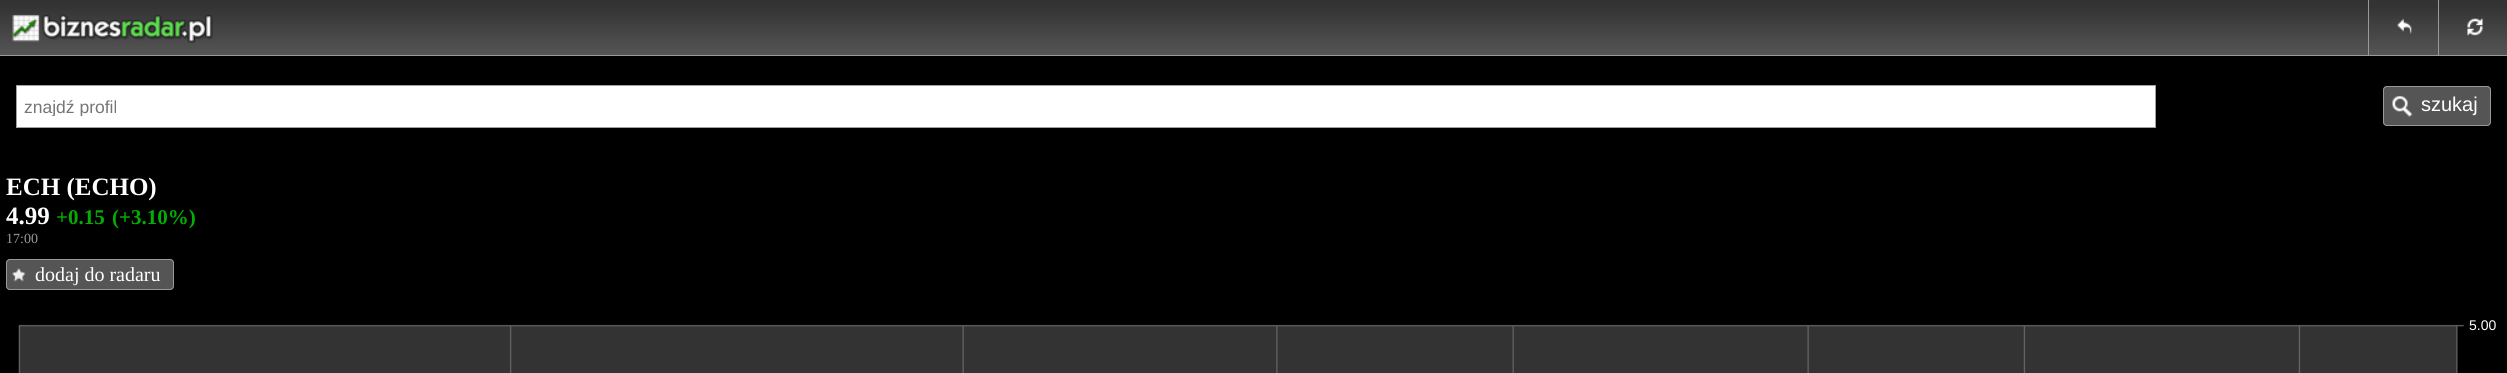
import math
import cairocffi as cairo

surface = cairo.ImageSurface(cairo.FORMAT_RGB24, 2507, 373)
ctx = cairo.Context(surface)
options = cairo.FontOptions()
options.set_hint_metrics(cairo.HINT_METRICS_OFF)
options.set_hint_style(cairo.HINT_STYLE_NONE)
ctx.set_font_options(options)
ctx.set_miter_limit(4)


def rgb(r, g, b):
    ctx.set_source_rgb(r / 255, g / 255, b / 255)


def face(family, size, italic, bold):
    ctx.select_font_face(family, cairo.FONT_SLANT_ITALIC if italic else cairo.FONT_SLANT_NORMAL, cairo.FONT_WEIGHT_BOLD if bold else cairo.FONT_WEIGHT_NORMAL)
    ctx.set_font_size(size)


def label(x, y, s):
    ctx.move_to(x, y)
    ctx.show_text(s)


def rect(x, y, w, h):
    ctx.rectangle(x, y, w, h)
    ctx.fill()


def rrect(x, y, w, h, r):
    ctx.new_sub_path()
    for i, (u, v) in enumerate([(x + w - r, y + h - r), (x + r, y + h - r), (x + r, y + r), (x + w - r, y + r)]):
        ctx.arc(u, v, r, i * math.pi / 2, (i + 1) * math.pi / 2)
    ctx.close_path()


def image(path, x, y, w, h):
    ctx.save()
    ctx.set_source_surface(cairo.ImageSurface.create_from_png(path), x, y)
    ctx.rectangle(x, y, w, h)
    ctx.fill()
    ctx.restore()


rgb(0, 0, 0)
ctx.paint()
gradient = cairo.LinearGradient(0, 55, 0, 0)
gradient.add_color_stop_rgba(0, 0.333, 0.333, 0.333, 1)
gradient.add_color_stop_rgba(0.9, 0.2, 0.2, 0.2, 1)
ctx.set_source(gradient)
rect(0, 0, 2507, 55)
rgb(153, 153, 153)
rect(0, 55, 2507, 1)
image('image0.png', 12, 14, 201, 29)
rect(2368, 0, 1, 55)
image('image1.png', 2397, 18, 15, 16)
rect(2438, 0, 1, 55)
image('image2.png', 2467, 18, 16, 18)
rgb(255, 255, 255)
ctx.rectangle(16.5, 85.5, 2139, 42)
ctx.fill_preserve()
rgb(160, 160, 160)
ctx.set_line_width(1)
ctx.stroke()
ctx.save()
ctx.rectangle(24, 96, 2125, 20)
ctx.clip()
face('Liberation Sans', 17.5, 0, 0)
rgb(117, 117, 117)
label(24, 113, 'znajdź profil')
ctx.restore()
rgb(85, 85, 85)
rrect(2383, 86, 108, 40, 4)
ctx.fill()
image('image3.png', 2392, 96, 21, 21)
rrect(2383.5, 86.5, 107, 39, 3.5)
rgb(153, 153, 153)
ctx.stroke()
face('Liberation Sans', 20, 0, 0)
rgb(255, 255, 255)
label(2421, 111, 'szukaj')
face('Liberation Serif', 25, 0, 1)
label(6, 195, 'ECH (ECHO)')
label(6, 224, '4.99')
face('Liberation Serif', 21, 0, 1)
rgb(3, 173, 1)
label(56, 224, '+0.15')
label(112, 224, '(+3.10%)')
face('Liberation Serif', 14, 0, 0)
rgb(153, 153, 153)
label(6, 243, '17:00')
rgb(85, 85, 85)
rrect(6, 259, 168, 31, 4)
ctx.fill()
image('image4.png', 12, 268, 14, 14)
rrect(6.5, 259.5, 167, 30, 3.5)
rgb(153, 153, 153)
ctx.stroke()
face('Liberation Serif', 20, 0, 0)
rgb(255, 255, 255)
label(35, 281, 'dodaj do radaru')
image('image5.png', 18, 324, 2446, 49)
face('Liberation Sans', 14, 0, 0)
label(2469, 330, '5.00')
surface.write_to_png('render.png')
